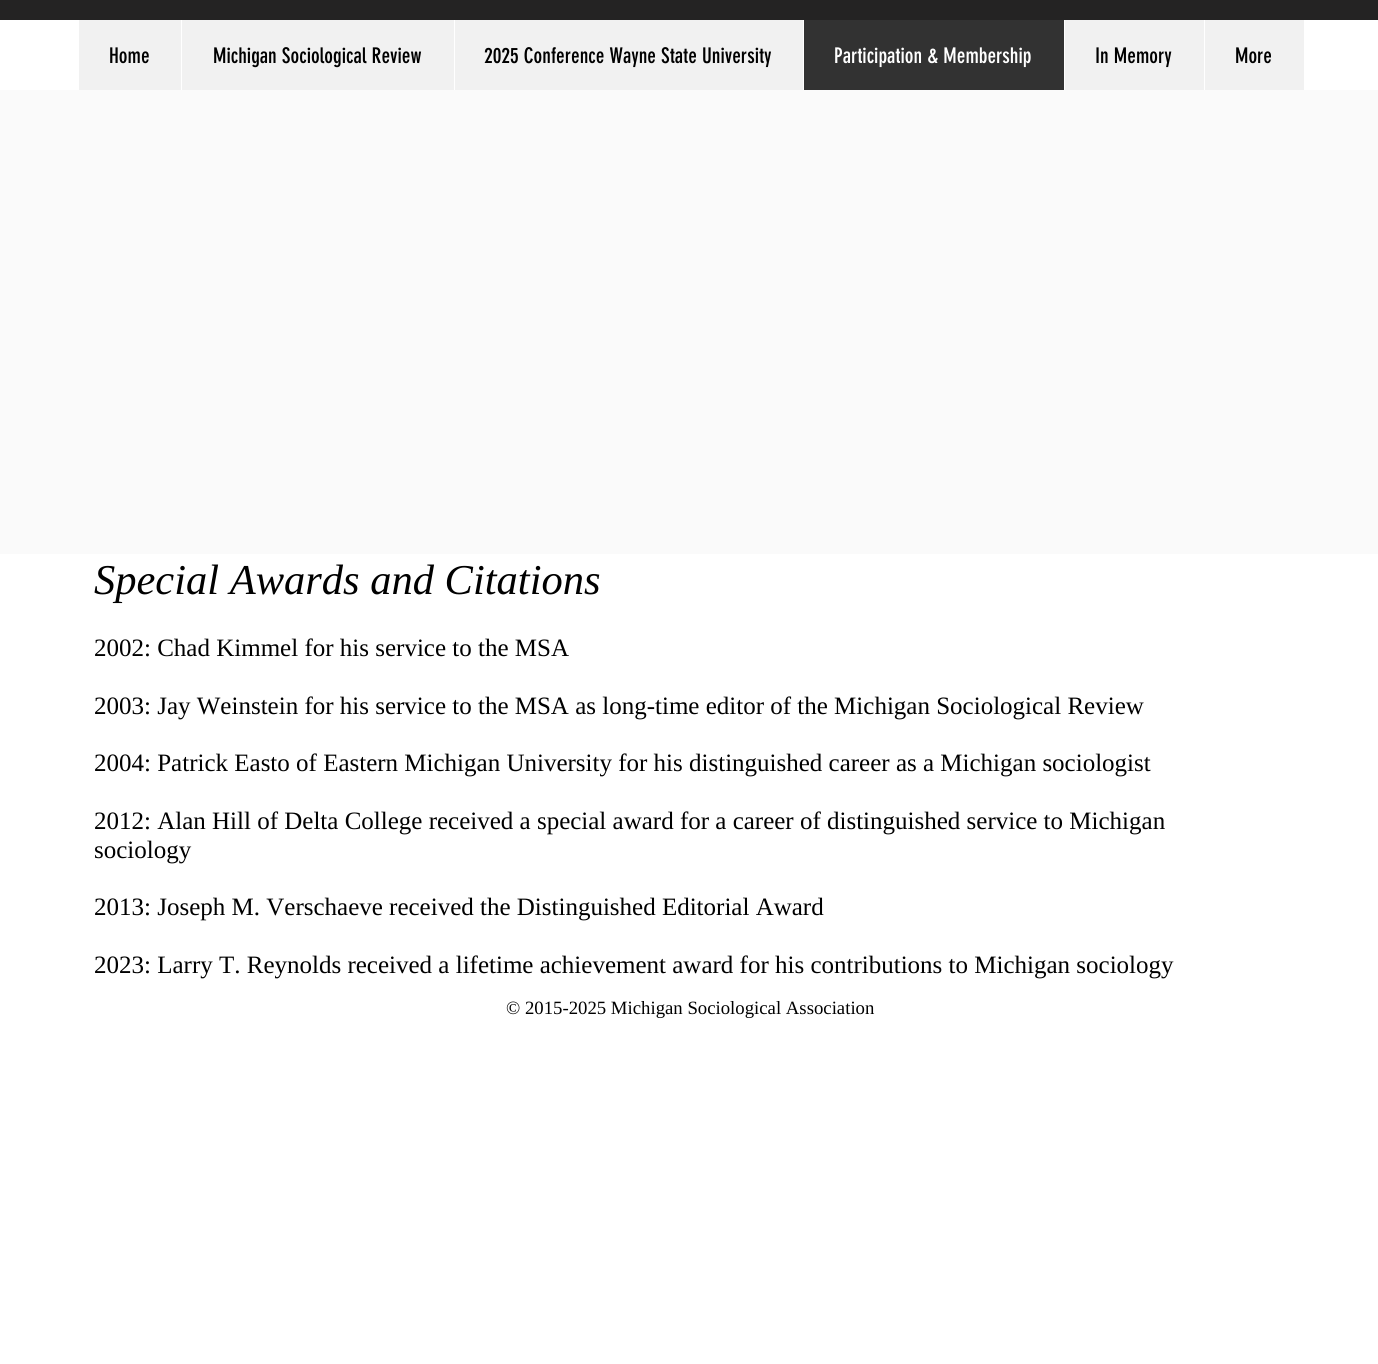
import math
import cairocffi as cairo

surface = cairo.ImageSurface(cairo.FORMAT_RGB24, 1378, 1364)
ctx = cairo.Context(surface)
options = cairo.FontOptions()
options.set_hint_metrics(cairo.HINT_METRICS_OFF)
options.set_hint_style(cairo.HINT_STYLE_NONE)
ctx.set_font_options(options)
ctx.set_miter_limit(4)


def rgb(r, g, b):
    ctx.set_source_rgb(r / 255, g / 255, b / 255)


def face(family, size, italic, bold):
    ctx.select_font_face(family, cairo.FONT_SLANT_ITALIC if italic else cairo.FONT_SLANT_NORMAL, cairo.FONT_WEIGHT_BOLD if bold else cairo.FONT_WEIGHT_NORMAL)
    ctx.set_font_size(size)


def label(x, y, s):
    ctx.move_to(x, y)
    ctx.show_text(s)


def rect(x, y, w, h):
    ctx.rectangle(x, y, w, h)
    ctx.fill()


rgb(255, 255, 255)
ctx.paint()
rgb(36, 35, 35)
rect(0, 0, 1378, 20)
rgb(241, 241, 241)
rect(79, 20, 1225, 70)
face('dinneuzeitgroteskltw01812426', 21.25, 0, 0)
rgb(0, 0, 0)
label(109, 63, 'Home')
rgb(255, 255, 255)
rect(181, 20, 1, 70)
rgb(0, 0, 0)
label(213, 63, 'Michigan Sociological Review')
rgb(255, 255, 255)
rect(454, 20, 1, 70)
rgb(0, 0, 0)
label(484, 63, '2025 Conference Wayne State University')
rgb(50, 50, 50)
rect(804, 20, 260, 70)
rgb(255, 255, 255)
rect(803, 20, 1, 70)
label(834, 63, 'Participation & Membership')
rect(1064, 20, 1, 70)
rgb(0, 0, 0)
label(1095, 63, 'In Memory')
rgb(255, 255, 255)
rect(1204, 20, 1, 70)
rgb(0, 0, 0)
label(1235, 63, 'More')
rgb(250, 250, 250)
rect(0, 90, 1378, 464)
face('Liberation Serif', 42.5, 1, 0)
rgb(0, 0, 0)
label(94, 594, 'Special Awards and Citations')
face('Liberation Serif', 25, 0, 0)
label(94, 656, '2002: Chad Kimmel for his service to the MSA')
label(94, 714, '2003: Jay Weinstein for his service to the MSA as long-time editor of the Michigan Sociological Review')
label(94, 771, '2004: Patrick Easto of Eastern Michigan University for his distinguished career as a Michigan sociologist')
label(94, 829, '2012: Alan Hill of Delta College received a special award for a career of distinguished service to Michigan')
label(94, 858, 'sociology')
label(94, 915, '2013: Joseph M. Verschaeve received the Distinguished Editorial Award')
label(94, 973, '2023: Larry T. Reynolds received a lifetime achievement award for his contributions to Michigan sociology')
face('Liberation Serif', 18.75, 0, 0)
label(506, 1014, '© 2015-2025 Michigan Sociological Association')
surface.write_to_png('render.png')
